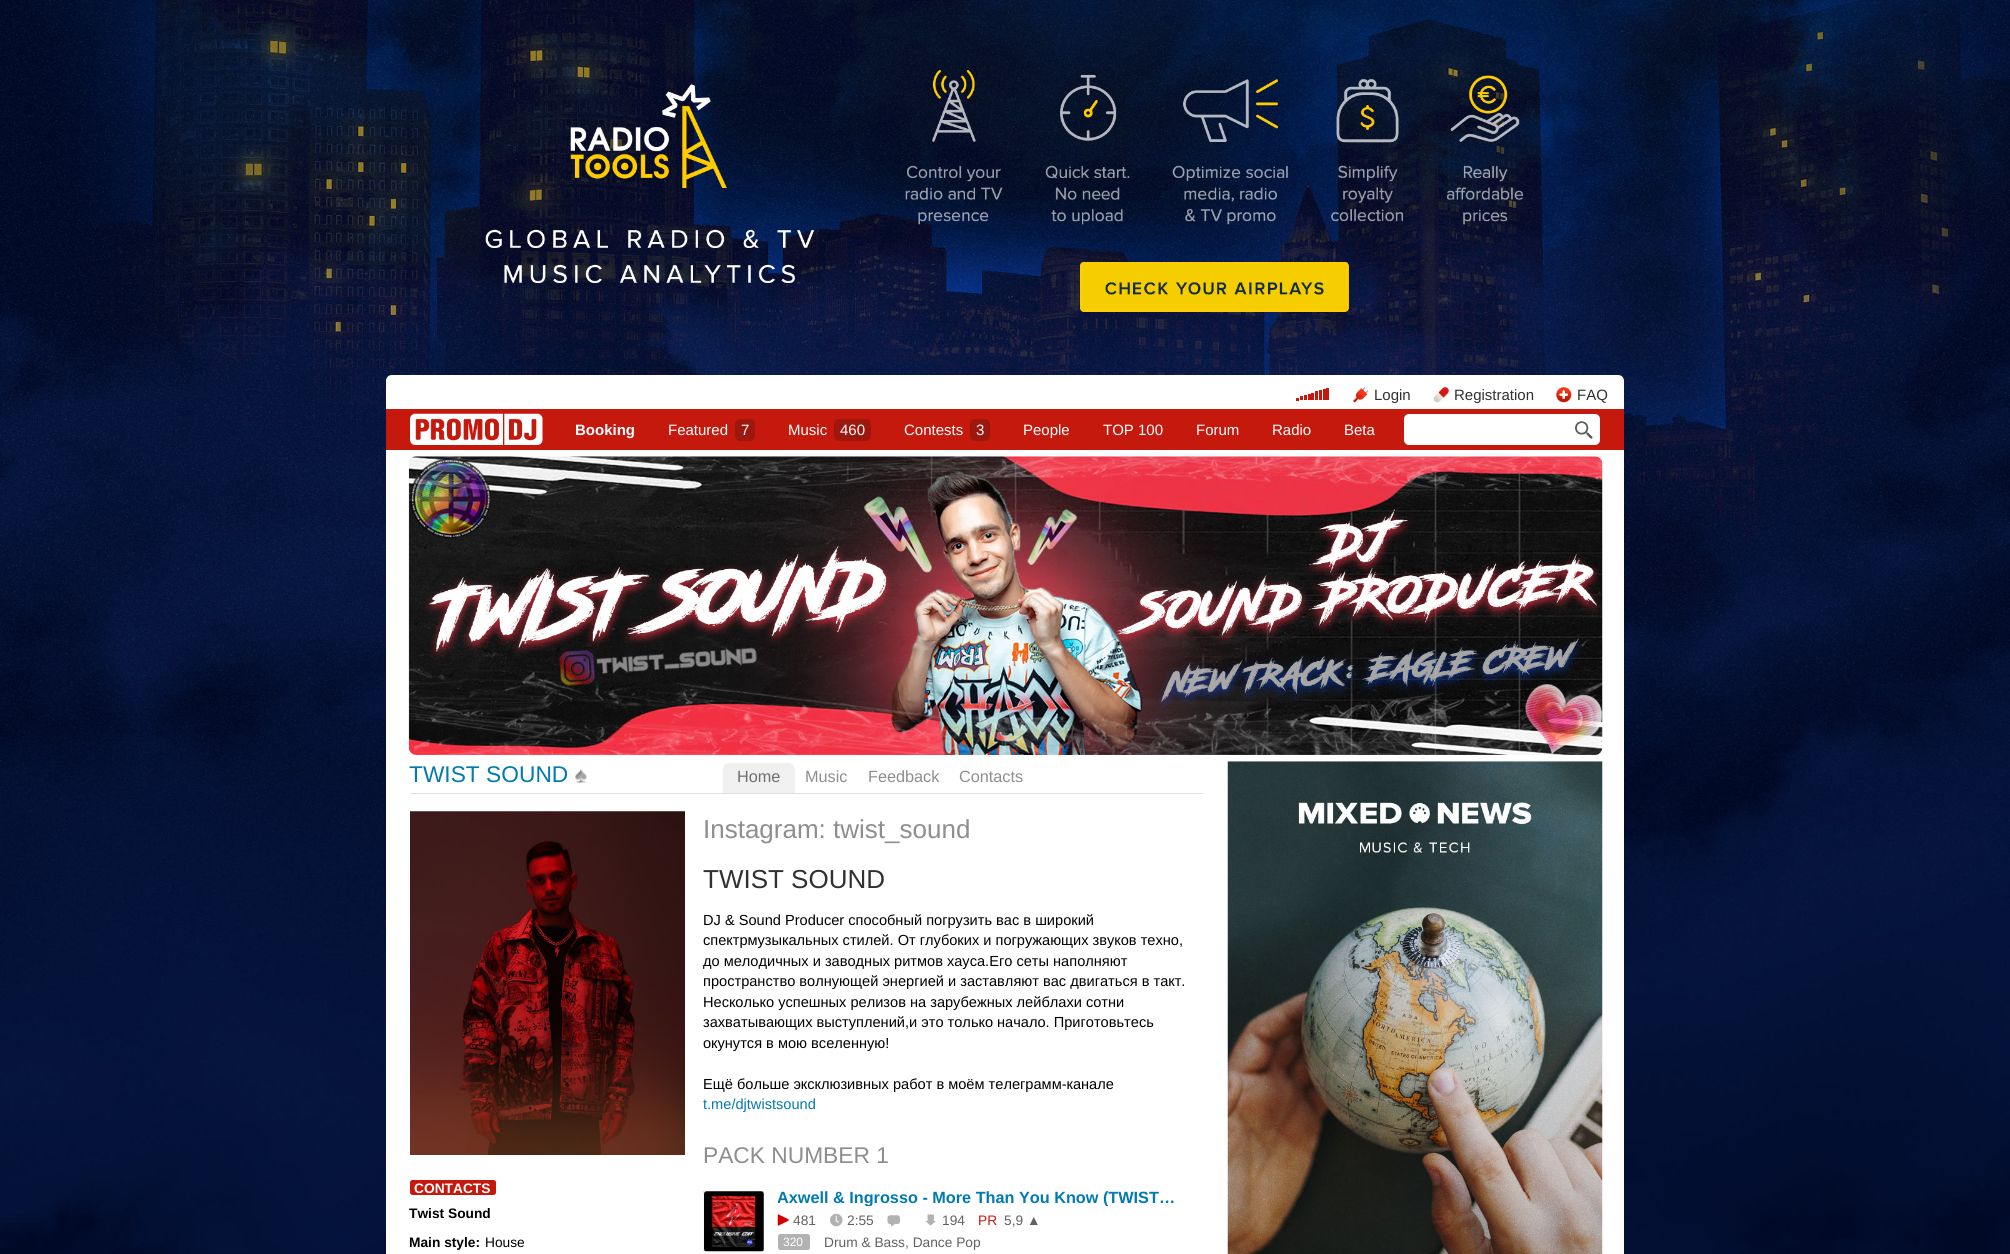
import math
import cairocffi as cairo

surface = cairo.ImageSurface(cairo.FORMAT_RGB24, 2010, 1254)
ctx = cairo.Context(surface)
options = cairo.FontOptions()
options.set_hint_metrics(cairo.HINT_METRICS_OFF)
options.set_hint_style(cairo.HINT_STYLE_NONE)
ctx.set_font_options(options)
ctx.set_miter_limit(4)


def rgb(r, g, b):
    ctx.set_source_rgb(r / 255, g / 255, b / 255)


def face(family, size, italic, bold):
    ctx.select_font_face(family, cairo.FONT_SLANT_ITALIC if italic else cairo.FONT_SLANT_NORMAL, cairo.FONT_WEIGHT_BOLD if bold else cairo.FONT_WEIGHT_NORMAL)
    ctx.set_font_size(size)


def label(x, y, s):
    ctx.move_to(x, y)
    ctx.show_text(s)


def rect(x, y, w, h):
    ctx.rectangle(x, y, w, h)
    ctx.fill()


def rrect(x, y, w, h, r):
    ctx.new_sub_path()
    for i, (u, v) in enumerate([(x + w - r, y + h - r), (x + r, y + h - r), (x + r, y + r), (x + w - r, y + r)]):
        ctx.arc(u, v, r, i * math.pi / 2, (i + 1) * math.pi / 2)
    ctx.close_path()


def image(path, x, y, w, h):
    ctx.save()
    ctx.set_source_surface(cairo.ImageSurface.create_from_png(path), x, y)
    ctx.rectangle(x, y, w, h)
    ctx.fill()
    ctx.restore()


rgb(255, 255, 255)
ctx.paint()
image('image0.png', 0, 0, 2010, 1254)
image('image1.png', 485, 70, 1038, 242)
rgb(255, 255, 255)
ctx.new_path()
ctx.move_to(392, 375)
ctx.line_to(1618, 375)
ctx.curve_to(1621.5, 375, 1624, 377.5, 1624, 381)
ctx.line_to(1624, 409)
ctx.line_to(386, 409)
ctx.line_to(386, 381)
ctx.curve_to(386, 377.5, 388.5, 375, 392, 375)
ctx.close_path()
ctx.fill()
rgb(198, 25, 14)
rect(1296, 398, 3, 3)
rect(1300, 396, 3, 4)
rect(1304, 395, 3, 5)
rect(1308, 394, 3, 6)
rect(1311, 393, 3, 7)
rect(1315, 391, 3, 9)
rect(1319, 390, 3, 10)
rect(1323, 389, 3, 11)
rect(1326, 388, 3, 12)
image('image2.png', 1353, 387, 16, 16)
face('Liberation Sans', 15, 0, 0)
rgb(49, 49, 49)
label(1374, 400, 'Login')
image('image3.png', 1433, 387, 16, 16)
label(1454, 400, 'Registration')
image('image4.png', 1556, 387, 16, 16)
label(1577, 400, 'FAQ')
rgb(198, 25, 14)
rect(386, 409, 1238, 41)
image('image5.png', 410, 413, 133, 32)
face('Liberation Sans', 15, 0, 1)
rgb(255, 255, 255)
label(575, 435, 'Booking')
face('Liberation Sans', 15, 0, 0)
label(668, 435, 'Featured')
rgb(158, 23, 14)
rrect(735, 419, 20, 22, 5)
ctx.fill()
rgb(255, 255, 255)
label(741, 435, '7')
label(788, 435, 'Music')
rgb(158, 23, 14)
rrect(834, 419, 37, 22, 5)
ctx.fill()
rgb(255, 255, 255)
label(840, 435, '460')
label(904, 435, 'Сontests')
rgb(158, 23, 14)
rrect(970, 419, 20, 22, 5)
ctx.fill()
rgb(255, 255, 255)
label(976, 435, '3')
label(1023, 435, 'People')
label(1103, 435, 'TOP 100')
label(1196, 435, 'Forum')
label(1272, 435, 'Radio')
label(1344, 435, 'Beta')
rrect(1404, 414, 196, 31, 5)
ctx.fill()
image('image6.png', 1575, 421, 18, 18)
rect(386, 450, 1238, 804)
image('image7.png', 408, 456, 1195, 299)
rgb(224, 224, 224)
rect(410, 793, 793, 1)
face('Liberation Sans', 22.75, 0, 0)
rgb(0, 122, 177)
label(409, 782, 'TWIST SOUND')
image('image8.png', 575, 768, 12, 15)
rgb(240, 240, 240)
rect(723, 763, 72, 30)
image('image9.png', 723, 763, 5, 5)
image('image10.png', 790, 763, 5, 5)
face('Liberation Sans', 16.25, 0, 0)
rgb(110, 110, 110)
label(737, 782, 'Home')
rgb(142, 142, 142)
label(805, 782, 'Music')
label(868, 782, 'Feedback')
label(959, 782, 'Contacts')
image('image11.png', 410, 811, 275, 344)
rgb(198, 25, 14)
rrect(410, 1180, 86, 15, 2.5)
ctx.fill()
face('Liberation Sans', 13.75, 0, 1)
rgb(255, 255, 255)
label(414, 1193, 'CONTACTS')
rgb(0, 0, 0)
label(409, 1218, 'Twist Sound')
label(409, 1247, 'Main style:')
face('Liberation Sans', 13.75, 0, 0)
label(485, 1247, 'House')
face('Liberation Sans', 26, 0, 0)
rgb(142, 142, 142)
label(703, 838, 'Instagram: twist_sound')
rgb(49, 49, 49)
label(703, 888, 'TWIST SOUND')
face('Liberation Sans', 14.6, 0, 0)
rgb(0, 0, 0)
label(703, 925, 'DJ & Sound Producer способный погрузить вас в широкий')
label(703, 945, 'спектрмузыкальных стилей. От глубоких и погружающих звуков техно,')
label(703, 966, 'до мелодичных и заводных ритмов хауса.Его сеты наполняют')
label(703, 986, 'пространство волнующей энергией и заставляют вас двигаться в такт.')
label(703, 1007, 'Несколько успешных релизов на зарубежных лейблахи сотни')
label(703, 1027, 'захватывающих выступлений,и это только начало. Приготовьтесь')
label(703, 1048, 'окунутся в мою вселенную!')
label(703, 1089, 'Ещё больше эксклюзивных работ в моём телеграмм-канале')
rgb(0, 122, 177)
label(703, 1109, 't.me/djtwistsound')
face('Liberation Sans', 22.75, 0, 0)
rgb(142, 142, 142)
label(703, 1163, 'PACK NUMBER 1')
image('image12.png', 703, 1191, 61, 61)
rrect(703.5, 1190.5, 61, 62, 3.5)
rgb(249, 249, 249)
ctx.set_line_width(1)
ctx.stroke()
ctx.save()
ctx.rectangle(778, 1190, 398, 16)
ctx.clip()
face('Liberation Sans', 16.25, 0, 1)
rgb(0, 122, 177)
label(777, 1203, 'Axwell & Ingrosso - More Than You Know (TWIST…')
ctx.restore()
image('image13.png', 777, 1214, 12, 12)
face('Liberation Sans', 13.75, 0, 0)
rgb(97, 97, 97)
label(793, 1225, '481')
image('image14.png', 830, 1213, 13, 14)
label(847, 1225, '2:55')
image('image15.png', 887, 1215, 13, 12)
image('image16.png', 925, 1214, 11, 12)
label(942, 1225, '194')
rgb(198, 25, 14)
label(978, 1225, 'PR')
rgb(97, 97, 97)
label(1004, 1225, '5,9 ▲')
rgb(178, 178, 178)
rrect(778, 1234, 32, 16, 2.5)
ctx.fill()
face('Liberation Sans', 12, 0, 0)
rgb(255, 255, 255)
label(783, 1246, '320')
face('Liberation Sans', 13.75, 0, 0)
rgb(97, 97, 97)
label(824, 1247, 'Drum & Bass, Dance Pop')
image('image17.png', 1227, 761, 376, 493)
surface.write_to_png('render.png')
